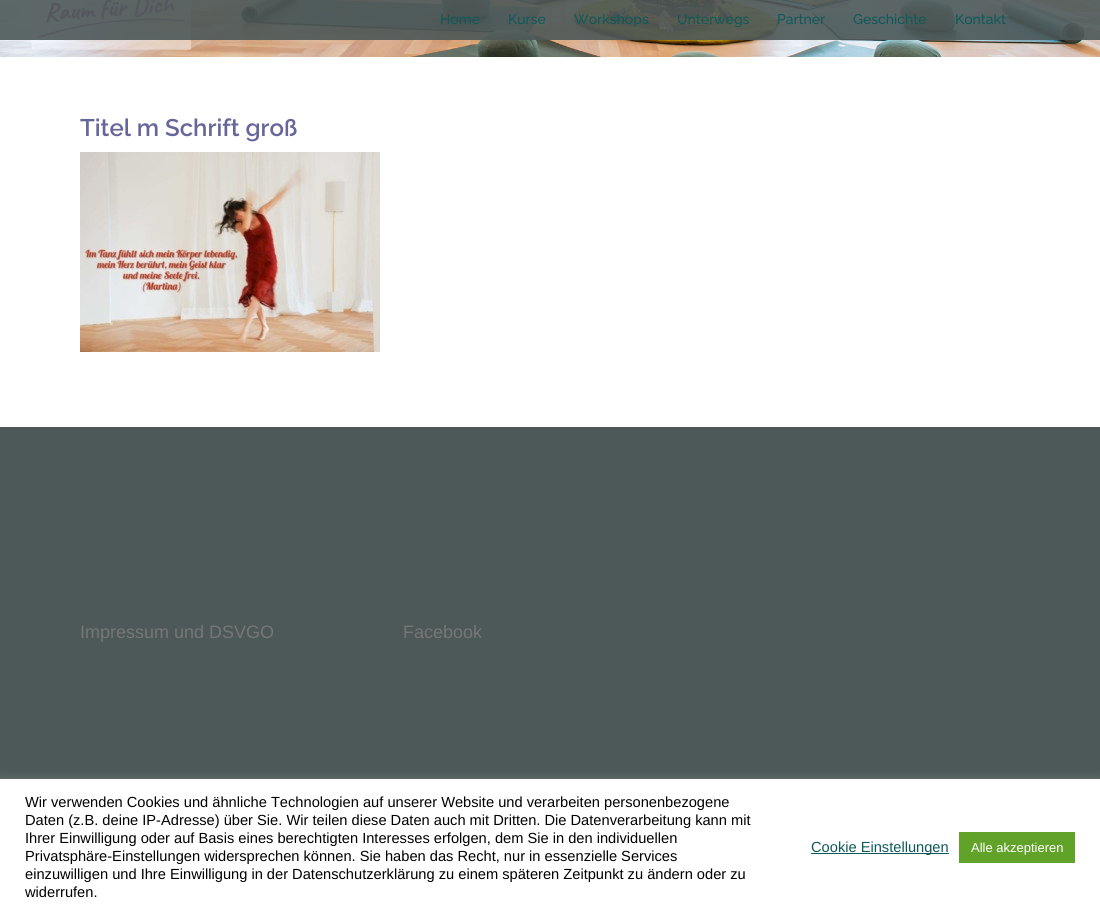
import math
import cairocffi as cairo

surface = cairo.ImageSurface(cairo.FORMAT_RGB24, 1100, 915)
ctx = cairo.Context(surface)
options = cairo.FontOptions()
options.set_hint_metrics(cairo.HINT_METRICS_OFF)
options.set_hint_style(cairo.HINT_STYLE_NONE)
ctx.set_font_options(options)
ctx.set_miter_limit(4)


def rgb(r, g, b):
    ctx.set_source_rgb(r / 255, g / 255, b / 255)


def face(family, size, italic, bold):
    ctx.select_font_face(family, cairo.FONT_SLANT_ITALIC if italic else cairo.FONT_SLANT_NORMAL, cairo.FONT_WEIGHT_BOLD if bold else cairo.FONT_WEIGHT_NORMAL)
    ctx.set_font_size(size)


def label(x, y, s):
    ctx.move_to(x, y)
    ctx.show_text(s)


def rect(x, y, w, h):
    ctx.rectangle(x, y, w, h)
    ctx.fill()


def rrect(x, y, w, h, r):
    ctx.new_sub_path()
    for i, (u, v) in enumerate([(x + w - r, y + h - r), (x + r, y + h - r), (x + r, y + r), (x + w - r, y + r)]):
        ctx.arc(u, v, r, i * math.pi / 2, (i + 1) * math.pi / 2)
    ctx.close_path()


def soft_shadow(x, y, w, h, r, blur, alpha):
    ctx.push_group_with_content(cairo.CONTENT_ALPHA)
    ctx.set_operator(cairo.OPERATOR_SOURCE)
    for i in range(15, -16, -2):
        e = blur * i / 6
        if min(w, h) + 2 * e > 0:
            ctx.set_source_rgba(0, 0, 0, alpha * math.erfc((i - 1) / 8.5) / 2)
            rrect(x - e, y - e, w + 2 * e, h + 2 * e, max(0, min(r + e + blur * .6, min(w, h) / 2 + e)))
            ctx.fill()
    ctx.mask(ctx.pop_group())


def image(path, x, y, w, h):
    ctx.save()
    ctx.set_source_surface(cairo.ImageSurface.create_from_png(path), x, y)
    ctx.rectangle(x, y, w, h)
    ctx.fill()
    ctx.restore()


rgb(255, 255, 255)
ctx.paint()
image('image0.png', 0, 0, 1100, 57)
ctx.set_source_rgba(0.302, 0.345, 0.345, 0.9)
rect(0, 0, 1100, 40)
face('Raleway Medium', 14, 0, 0)
rgb(14, 89, 89)
label(440, 24, 'Home')
label(508, 24, 'Kurse')
label(574, 24, 'Workshops')
label(677, 24, 'Unterwegs')
label(777, 24, 'Partner')
label(853, 24, 'Geschichte')
label(955, 24, 'Kontakt')
face('Raleway SemiBold', 24, 0, 0)
rgb(102, 102, 153)
label(80, 136, 'Titel m Schrift groß')
image('image1.png', 80, 152, 300, 200)
rgb(77, 88, 88)
rect(0, 427, 1100, 352)
face('Liberation Sans', 18, 0, 0)
rgb(118, 118, 118)
label(80, 638, 'Impressum und DSVGO')
label(403, 638, 'Facebook')
rgb(172, 171, 171)
soft_shadow(0, 778, 1100, 136, 0, 5, 0.3)
rgb(255, 255, 255)
rect(0, 779, 1100, 136)
face('Liberation Sans', 14.65, 0, 0)
rgb(0, 0, 0)
label(25, 807, 'Wir verwenden Cookies und ähnliche Technologien auf unserer Website und verarbeiten personenbezogene')
label(25, 825, 'Daten (z.B. deine IP-Adresse) über Sie. Wir teilen diese Daten auch mit Dritten. Die Datenverarbeitung kann mit')
label(25, 843, 'Ihrer Einwilligung oder auf Basis eines berechtigten Interesses erfolgen, dem Sie in den individuellen')
label(25, 861, 'Privatsphäre-Einstellungen widersprechen können. Sie haben das Recht, nur in essenzielle Services')
label(25, 879, 'einzuwilligen und Ihre Einwilligung in der Datenschutzerklärung zu einem späteren Zeitpunkt zu ändern oder zu')
label(25, 897, 'widerrufen.')
rgb(14, 89, 89)
rect(811, 853, 138, 1)
label(811, 852, 'Cookie Einstellungen')
rgb(97, 162, 41)
rect(959, 832, 116, 31)
face('Liberation Sans', 13, 0, 0)
rgb(255, 255, 255)
label(971, 852, 'Alle akzeptieren')
surface.write_to_png('render.png')
